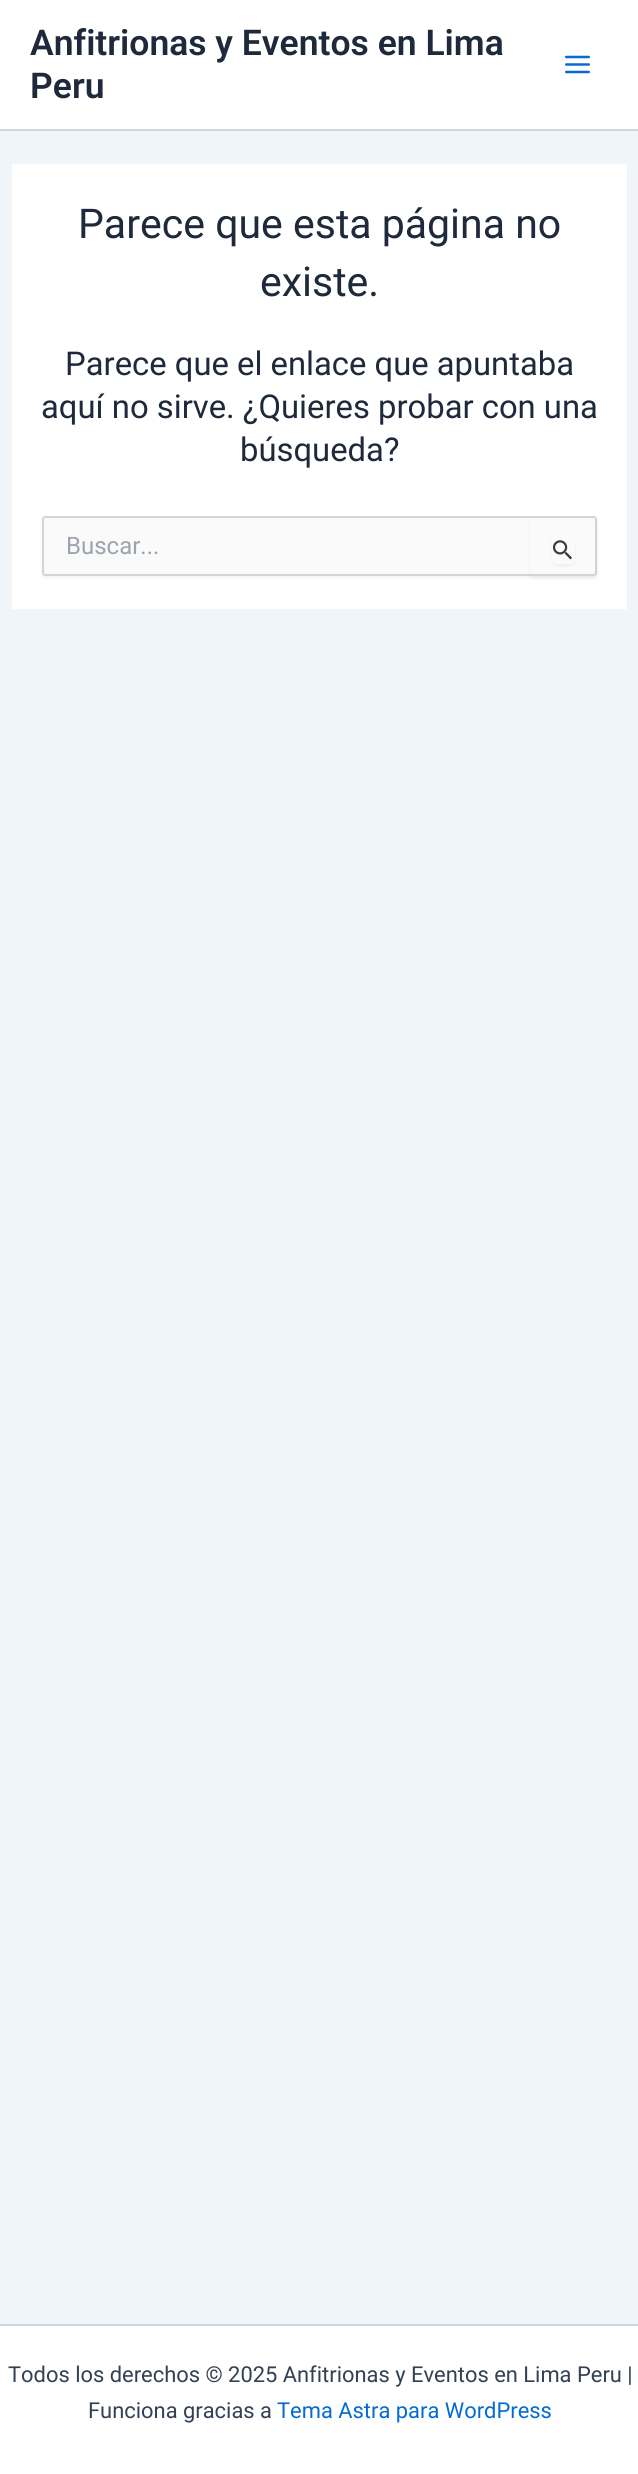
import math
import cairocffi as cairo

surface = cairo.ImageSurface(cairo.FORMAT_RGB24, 638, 2474)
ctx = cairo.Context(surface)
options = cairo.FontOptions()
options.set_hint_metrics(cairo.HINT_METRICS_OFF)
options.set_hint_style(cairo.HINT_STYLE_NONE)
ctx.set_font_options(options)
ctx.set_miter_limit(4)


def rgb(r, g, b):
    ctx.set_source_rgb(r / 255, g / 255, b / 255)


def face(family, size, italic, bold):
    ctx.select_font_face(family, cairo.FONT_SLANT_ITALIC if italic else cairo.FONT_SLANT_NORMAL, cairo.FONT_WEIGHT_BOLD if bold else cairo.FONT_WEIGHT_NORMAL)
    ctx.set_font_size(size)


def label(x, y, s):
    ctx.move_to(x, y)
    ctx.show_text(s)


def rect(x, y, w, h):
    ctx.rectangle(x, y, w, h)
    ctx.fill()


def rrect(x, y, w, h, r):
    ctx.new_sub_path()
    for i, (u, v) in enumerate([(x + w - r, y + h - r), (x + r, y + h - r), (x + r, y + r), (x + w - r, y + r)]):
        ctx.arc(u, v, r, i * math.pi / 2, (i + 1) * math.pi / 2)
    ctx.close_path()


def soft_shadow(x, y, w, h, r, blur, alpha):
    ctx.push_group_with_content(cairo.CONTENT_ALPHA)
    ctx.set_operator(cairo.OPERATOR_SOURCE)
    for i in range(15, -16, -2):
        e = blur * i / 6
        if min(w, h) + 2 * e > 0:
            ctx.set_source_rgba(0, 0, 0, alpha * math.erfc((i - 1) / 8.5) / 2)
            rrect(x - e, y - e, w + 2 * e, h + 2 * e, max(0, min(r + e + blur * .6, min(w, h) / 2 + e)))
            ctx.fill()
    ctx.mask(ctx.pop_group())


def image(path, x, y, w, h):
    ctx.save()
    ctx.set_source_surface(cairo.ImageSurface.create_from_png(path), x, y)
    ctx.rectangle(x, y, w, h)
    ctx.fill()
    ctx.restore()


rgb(240, 245, 250)
ctx.paint()
rgb(255, 255, 255)
rect(0, 0, 638, 129)
rgb(209, 213, 219)
rect(0, 129, 638, 2)
face('Roboto SemiBold', 35.5, 0, 0)
rgb(30, 41, 59)
label(30, 55, 'Anfitrionas y Eventos en Lima')
label(30, 98, 'Peru')
image('image0.png', 565, 55, 25, 19)
rgb(255, 255, 255)
rect(12, 164, 615, 445)
face('Roboto', 41, 0, 0)
rgb(30, 41, 59)
label(78, 238, 'Parece que esta página no')
label(260, 296, 'existe.')
face('Roboto', 32.8, 0, 0)
label(65, 375, 'Parece que el enlace que apuntaba')
label(41, 418, 'aquí no sirve. ¿Quieres probar con una')
label(240, 461, 'búsqueda?')
rgb(0, 0, 0)
soft_shadow(42, 518, 555, 60, 3, 1.5, 0.05)
rgb(250, 250, 250)
rrect(43, 517, 553, 58, 2)
ctx.fill_preserve()
rgb(209, 213, 219)
ctx.stroke()
face('Roboto', 24, 0, 0)
rgb(156, 163, 175)
label(66, 554, 'Buscar...')
ctx.save()
ctx.set_fill_rule(cairo.FILL_RULE_EVEN_ODD)
ctx.new_path()
ctx.move_to(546, 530)
ctx.line_to(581, 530)
ctx.line_to(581, 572)
ctx.line_to(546, 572)
ctx.close_path()
ctx.move_to(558, 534)
ctx.line_to(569, 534)
ctx.curve_to(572.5, 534, 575, 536.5, 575, 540)
ctx.line_to(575, 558)
ctx.curve_to(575, 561.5, 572.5, 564, 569, 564)
ctx.line_to(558, 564)
ctx.curve_to(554.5, 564, 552, 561.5, 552, 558)
ctx.line_to(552, 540)
ctx.curve_to(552, 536.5, 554.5, 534, 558, 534)
ctx.close_path()
ctx.clip()
rgb(0, 0, 0)
soft_shadow(552, 536, 23, 30, 6, 1.5, 0.05)
ctx.restore()
image('image1.png', 553, 540, 19, 20)
ctx.save()
ctx.set_fill_rule(cairo.FILL_RULE_EVEN_ODD)
ctx.new_path()
ctx.move_to(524, 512)
ctx.line_to(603, 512)
ctx.line_to(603, 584)
ctx.line_to(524, 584)
ctx.close_path()
ctx.move_to(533, 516)
ctx.line_to(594, 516)
ctx.curve_to(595.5, 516, 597, 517.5, 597, 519)
ctx.line_to(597, 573)
ctx.curve_to(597, 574.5, 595.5, 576, 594, 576)
ctx.line_to(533, 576)
ctx.curve_to(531.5, 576, 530, 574.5, 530, 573)
ctx.line_to(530, 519)
ctx.curve_to(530, 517.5, 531.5, 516, 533, 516)
ctx.close_path()
ctx.clip()
rgb(0, 0, 0)
soft_shadow(530, 518, 67, 60, 3, 1.5, 0.05)
ctx.restore()
rgb(255, 255, 255)
rect(0, 2326, 638, 148)
rgb(209, 213, 219)
rect(0, 2324, 638, 2)
face('Roboto', 21.9, 0, 0)
rgb(51, 65, 85)
label(8, 2382, 'Todos los derechos © 2025 Anfitrionas y Eventos en Lima Peru |')
label(88, 2418, 'Funciona gracias a')
rgb(4, 107, 210)
label(277, 2418, 'Tema Astra para WordPress')
surface.write_to_png('render.png')
